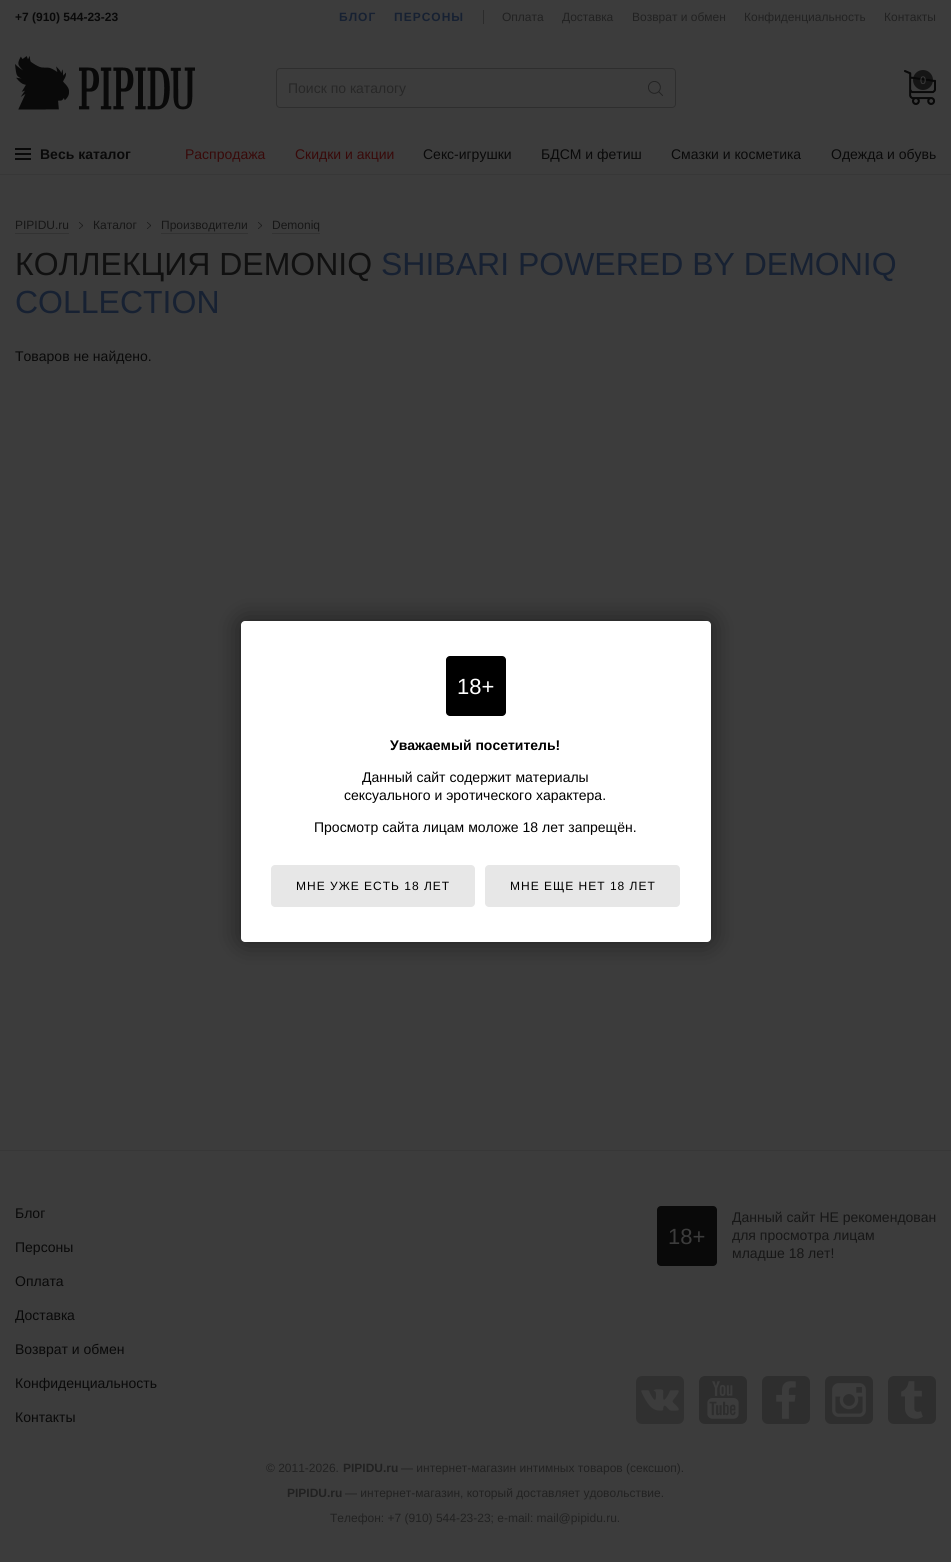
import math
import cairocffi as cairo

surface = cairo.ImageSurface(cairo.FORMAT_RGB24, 951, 1562)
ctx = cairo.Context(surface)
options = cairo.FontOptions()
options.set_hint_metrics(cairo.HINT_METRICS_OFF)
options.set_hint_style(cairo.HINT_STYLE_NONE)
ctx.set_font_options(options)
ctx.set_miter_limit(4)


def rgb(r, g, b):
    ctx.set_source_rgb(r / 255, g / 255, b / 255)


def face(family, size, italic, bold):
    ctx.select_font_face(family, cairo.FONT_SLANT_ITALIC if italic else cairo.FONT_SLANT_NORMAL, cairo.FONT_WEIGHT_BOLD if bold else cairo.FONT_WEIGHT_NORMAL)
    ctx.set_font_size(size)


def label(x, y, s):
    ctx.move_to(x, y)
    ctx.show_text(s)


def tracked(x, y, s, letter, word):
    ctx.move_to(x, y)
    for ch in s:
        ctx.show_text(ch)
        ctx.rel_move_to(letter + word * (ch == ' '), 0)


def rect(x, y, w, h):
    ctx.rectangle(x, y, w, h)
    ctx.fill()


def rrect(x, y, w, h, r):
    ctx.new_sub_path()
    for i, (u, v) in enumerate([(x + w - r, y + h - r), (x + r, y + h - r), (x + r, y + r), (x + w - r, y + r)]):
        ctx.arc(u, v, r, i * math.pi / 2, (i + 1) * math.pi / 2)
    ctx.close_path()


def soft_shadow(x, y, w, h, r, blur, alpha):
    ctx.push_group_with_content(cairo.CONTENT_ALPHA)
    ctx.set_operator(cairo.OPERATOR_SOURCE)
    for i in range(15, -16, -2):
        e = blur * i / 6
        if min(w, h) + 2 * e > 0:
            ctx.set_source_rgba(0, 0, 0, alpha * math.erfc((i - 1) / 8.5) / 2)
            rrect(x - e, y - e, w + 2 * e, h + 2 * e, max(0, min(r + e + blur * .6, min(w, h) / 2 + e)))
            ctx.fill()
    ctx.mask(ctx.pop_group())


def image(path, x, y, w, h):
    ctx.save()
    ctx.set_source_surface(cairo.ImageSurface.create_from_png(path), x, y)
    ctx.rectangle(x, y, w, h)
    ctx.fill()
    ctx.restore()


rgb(60, 60, 60)
ctx.paint()
face('Liberation Sans', 12, 0, 1)
rgb(9, 9, 9)
label(15, 21, '+7 (910) 544-23-23')
rgb(23, 33, 50)
tracked(339, 21, 'БЛОГ', 1, 0)
tracked(394, 21, 'ПЕРСОНЫ', 1, 0)
rgb(43, 43, 43)
rect(483, 10, 1, 14)
face('Liberation Sans', 12, 0, 0)
rgb(33, 33, 33)
label(502, 21, 'Оплата')
label(562, 21, 'Доставка')
label(632, 21, 'Возврат и обмен')
label(744, 21, 'Конфиденциальность')
label(884, 21, 'Контакты')
rgb(55, 55, 55)
rect(0, 174, 951, 1)
image('image0.png', 15, 56, 180, 54)
image('image1.png', 904, 70, 32, 35)
ctx.set_source_rgba(0.035, 0.035, 0.035, 0.75)
ctx.arc(923, 80, 10, 0, 2 * math.pi)
ctx.fill()
face('Liberation Sans', 11, 0, 0)
rgb(60, 60, 60)
label(920, 84, '0')
rrect(276.5, 68.5, 399, 39, 3.5)
rgb(46, 46, 46)
ctx.set_line_width(1)
ctx.stroke()
face('Liberation Sans', 14, 0, 0)
rgb(39, 39, 39)
label(288, 93, 'Поиск по каталогу')
image('image2.png', 648, 81, 15, 15)
rgb(9, 9, 9)
rect(15, 148, 16, 2)
rect(15, 153, 16, 2)
rect(15, 158, 16, 2)
face('Liberation Sans', 14, 0, 1)
label(40, 159, 'Весь каталог')
face('Liberation Sans', 14, 0, 0)
rgb(56, 9, 9)
label(185, 159, 'Распродажа')
label(295, 159, 'Скидки и акции')
rgb(9, 9, 9)
label(423, 159, 'Секс-игрушки')
label(541, 159, 'БДСМ и фетиш')
label(671, 159, 'Смазки и косметика')
label(831, 159, 'Одежда и обувь')
face('Liberation Sans', 12, 0, 0)
rgb(22, 22, 22)
label(15, 229, 'PIPIDU.ru')
rgb(50, 50, 50)
rect(15, 233, 54, 1)
image('image3.png', 79, 222, 4, 7)
rgb(22, 22, 22)
label(93, 229, 'Каталог')
image('image3.png', 147, 222, 4, 7)
label(161, 229, 'Производители')
rgb(50, 50, 50)
rect(161, 233, 87, 1)
image('image3.png', 258, 222, 4, 7)
rgb(22, 22, 22)
label(272, 229, 'Demoniq')
rgb(50, 50, 50)
rect(272, 233, 48, 1)
face('Liberation Sans', 32, 0, 0)
rgb(16, 16, 16)
label(15, 275, 'КОЛЛЕКЦИЯ DEMONIQ')
rgb(23, 33, 50)
label(381, 275, 'SHIBARI POWERED BY DEMONIQ')
label(15, 313, 'COLLECTION')
face('Liberation Sans', 14, 0, 0)
rgb(9, 9, 9)
label(15, 361, 'Товаров не найдено.')
rgb(55, 55, 55)
rect(0, 1150, 951, 1)
rgb(9, 9, 9)
label(15, 1218, 'Блог')
label(15, 1252, 'Персоны')
label(15, 1286, 'Оплата')
label(15, 1320, 'Доставка')
label(15, 1354, 'Возврат и обмен')
label(15, 1388, 'Конфиденциальность')
label(15, 1422, 'Контакты')
rgb(22, 22, 22)
label(732, 1222, 'Данный сайт НЕ рекомендован')
rgb(9, 9, 9)
rrect(657, 1206, 60, 60, 4)
ctx.fill()
face('Liberation Sans', 22, 0, 0)
rgb(60, 60, 60)
label(668, 1244, '18+')
face('Liberation Sans', 14, 0, 0)
rgb(22, 22, 22)
label(732, 1240, 'для просмотра лицам')
label(732, 1258, 'младше 18 лет!')
image('image4.png', 636, 1376, 48, 48)
image('image5.png', 699, 1376, 48, 48)
image('image6.png', 762, 1376, 48, 48)
image('image7.png', 825, 1376, 48, 48)
image('image8.png', 888, 1376, 48, 48)
face('Liberation Sans', 12, 0, 0)
rgb(33, 33, 33)
label(266, 1472, '© 2011-2026.')
face('Liberation Sans', 12, 0, 1)
label(343, 1472, 'PIPIDU.ru')
face('Liberation Sans', 12, 0, 0)
label(401, 1472, '— интернет-магазин интимных товаров (сексшоп).')
face('Liberation Sans', 12, 0, 1)
label(287, 1497, 'PIPIDU.ru')
face('Liberation Sans', 12, 0, 0)
label(345, 1497, '— интернет-магазин, который доставляет удовольствие.')
label(330, 1522, 'Телефон: +7 (910) 544-23-23; e-mail: mail@pipidu.ru.')
rgb(0, 0, 0)
soft_shadow(241, 621, 470, 321, 4, 12.5, 0.5)
rgb(255, 255, 255)
rrect(241, 621, 470, 321, 4)
ctx.fill()
rgb(0, 0, 0)
rrect(446, 656, 60, 60, 4)
ctx.fill()
face('Liberation Sans', 22, 0, 0)
rgb(255, 255, 255)
label(457, 694, '18+')
face('Liberation Sans', 14, 0, 1)
rgb(0, 0, 0)
label(390, 750, 'Уважаемый посетитель!')
face('Liberation Sans', 14, 0, 0)
label(362, 782, 'Данный сайт содержит материалы')
label(344, 800, 'сексуального и эротического характера.')
label(314, 832, 'Просмотр сайта лицам моложе 18 лет запрещён.')
rgb(231, 231, 231)
rrect(271, 865, 204, 42, 4)
ctx.fill()
face('Liberation Sans', 12, 0, 0)
rgb(0, 0, 0)
tracked(296, 890, 'МНЕ УЖЕ ЕСТЬ 18 ЛЕТ', 1, 0)
rgb(231, 231, 231)
rrect(485, 865, 195, 42, 4)
ctx.fill()
rgb(0, 0, 0)
tracked(510, 890, 'МНЕ ЕЩЕ НЕТ 18 ЛЕТ', 1, 0)
surface.write_to_png('render.png')
